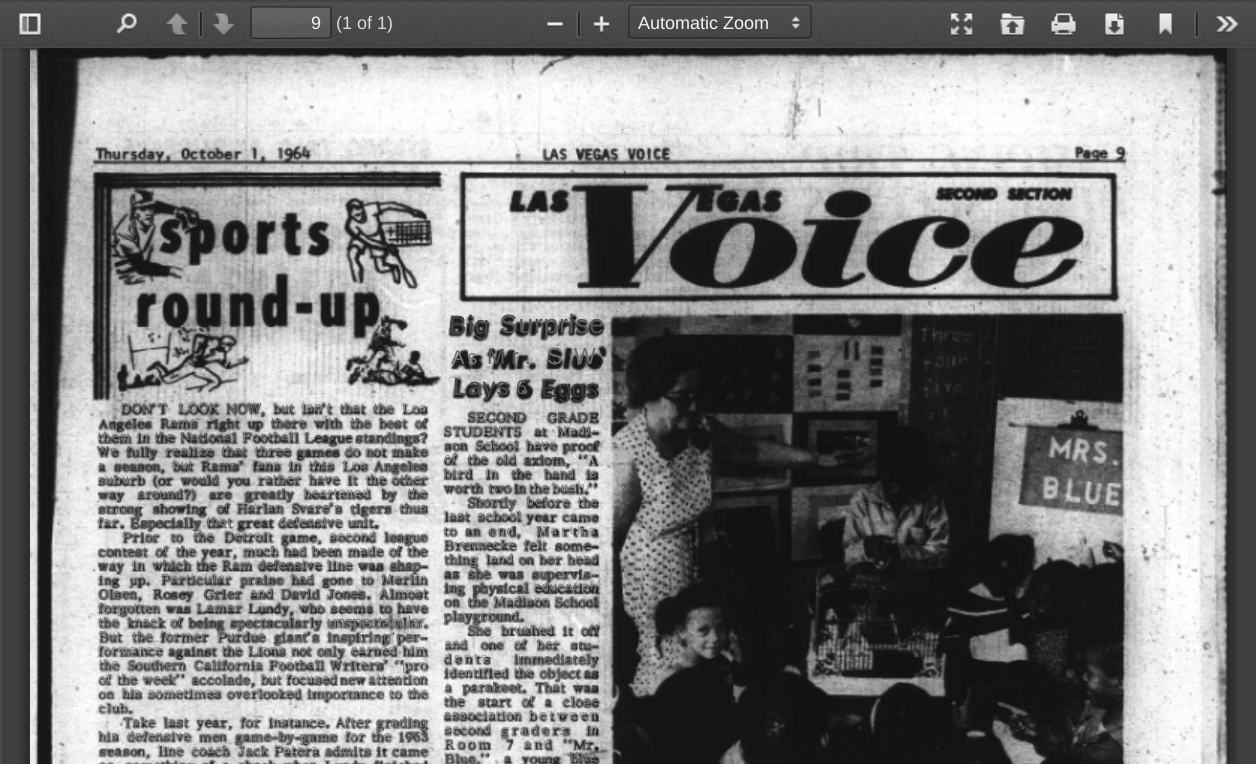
import math
import cairocffi as cairo

surface = cairo.ImageSurface(cairo.FORMAT_RGB24, 1256, 764)
ctx = cairo.Context(surface)
options = cairo.FontOptions()
options.set_hint_metrics(cairo.HINT_METRICS_OFF)
options.set_hint_style(cairo.HINT_STYLE_NONE)
ctx.set_font_options(options)
ctx.set_miter_limit(4)


def rgb(r, g, b):
    ctx.set_source_rgb(r / 255, g / 255, b / 255)


def face(family, size, italic, bold):
    ctx.select_font_face(family, cairo.FONT_SLANT_ITALIC if italic else cairo.FONT_SLANT_NORMAL, cairo.FONT_WEIGHT_BOLD if bold else cairo.FONT_WEIGHT_NORMAL)
    ctx.set_font_size(size)


def label(x, y, s):
    ctx.move_to(x, y)
    ctx.show_text(s)


def tracked(x, y, s, letter, word):
    ctx.move_to(x, y)
    for ch in s:
        ctx.show_text(ch)
        ctx.rel_move_to(letter + word * (ch == ' '), 0)


def rect(x, y, w, h):
    ctx.rectangle(x, y, w, h)
    ctx.fill()


def image(path, x, y, w, h):
    ctx.save()
    ctx.set_source_surface(cairo.ImageSurface.create_from_png(path), x, y)
    ctx.rectangle(x, y, w, h)
    ctx.fill()
    ctx.restore()


rgb(64, 64, 64)
ctx.paint()
rgb(74, 74, 74)
rect(0, 48, 2, 716)
image('image14.png', 19, 48, 1219, 716)
image('image15.png', 30, 48, 1197, 716)
ctx.set_source_rgba(0, 0, 0, 0.15)
rect(0, 48, 1256, 2)
image('image0.png', 0, 0, 1256, 48)
ctx.set_source_rgba(1, 1, 1, 0.05)
rect(0, 47, 1256, 2)
ctx.set_source_rgba(0, 0, 0, 0.15)
rect(0, 0, 1256, 2)
image('image1.png', 19, 13, 22, 23)
image('image2.png', 116, 13, 21, 22)
image('image3.png', 166, 13, 22, 23)
ctx.rectangle(199, 12, 3, 25)
ctx.set_source_rgba(1, 1, 1, 0.08)
ctx.stroke()
ctx.set_source_rgba(0, 0, 0, 0.5)
rect(200, 12, 2, 24)
image('image4.png', 212, 13, 23, 23)
ctx.set_source_rgba(1, 1, 1, 0.05)
ctx.new_path()
ctx.move_to(251, 38)
ctx.curve_to(251, 44, 266, 41, 266, 41)
ctx.line_to(316, 41)
ctx.curve_to(333, 41, 332, 44, 332, 29)
ctx.curve_to(332, 26, 333, 11, 332, 9)
ctx.line_to(332, 36)
ctx.curve_to(332, 38, 330, 39, 328, 39)
ctx.line_to(254, 39)
ctx.curve_to(252, 39, 252, 38, 251, 38)
ctx.close_path()
ctx.fill()
ctx.set_source_rgba(1, 1, 1, 0.09)
rect(252, 8, 78, 30)
gradient = cairo.LinearGradient(291, 7.5, 291, 38)
gradient.add_color_stop_rgba(0, 1, 1, 1, 0.05)
gradient.add_color_stop_rgba(1, 1, 1, 1, 0)
ctx.set_source(gradient)
rect(252, 8, 78, 17)
ctx.set_source_rgba(0, 0, 0, 0.05)
ctx.new_path()
ctx.move_to(254, 9)
ctx.line_to(328, 9)
ctx.line_to(330, 10)
ctx.curve_to(330, 9, 330, 8, 328, 8)
ctx.line_to(253, 8)
ctx.curve_to(252, 8, 252, 9, 252, 10)
ctx.close_path()
ctx.fill()
ctx.new_path()
ctx.move_to(252, 7.5)
ctx.line_to(252.5, 7)
ctx.curve_to(254, 6, 309.5, 7, 316, 7)
ctx.line_to(328.5, 7)
ctx.line_to(330, 7.5)
ctx.set_source_rgba(0, 0, 0, 0.32)
ctx.set_line_width(1.5)
ctx.stroke()
ctx.new_path()
ctx.move_to(330, 7.5)
ctx.curve_to(330.5, 8, 331, 8.5, 331, 9)
ctx.line_to(331, 36)
ctx.curve_to(331, 36.5, 330.5, 37, 330, 37.5)
ctx.set_source_rgba(0, 0, 0, 0.38)
ctx.stroke()
ctx.new_path()
ctx.move_to(330, 37.5)
ctx.line_to(328.5, 38)
ctx.line_to(316, 38)
ctx.curve_to(309.5, 38, 254, 39, 252.5, 38)
ctx.line_to(252, 37.5)
ctx.set_source_rgba(0, 0, 0, 0.42)
ctx.stroke()
ctx.new_path()
ctx.move_to(252, 37.5)
ctx.curve_to(251.5, 37, 251, 36.5, 251, 36)
ctx.line_to(251, 9)
ctx.curve_to(251, 8.5, 251.5, 8, 252, 7.5)
ctx.set_source_rgba(0, 0, 0, 0.38)
ctx.stroke()
face('Liberation Sans', 18, 0, 0)
rgb(242, 242, 242)
label(311, 29, '9')
rgb(217, 217, 217)
label(336, 29, '(1 of 1)')
image('image5.png', 547, 22, 16, 5)
ctx.rectangle(577, 12, 3, 25)
ctx.set_source_rgba(1, 1, 1, 0.08)
ctx.set_line_width(2)
ctx.stroke()
ctx.set_source_rgba(0, 0, 0, 0.5)
rect(578, 12, 2, 24)
image('image6.png', 593, 16, 17, 17)
ctx.set_source_rgba(1, 1, 1, 0.05)
ctx.new_path()
ctx.move_to(629, 38)
ctx.curve_to(629, 40, 630, 41, 632, 41)
ctx.line_to(809, 41)
ctx.curve_to(811, 41, 812, 40, 812, 38)
ctx.line_to(812, 9)
ctx.line_to(811, 7)
ctx.line_to(812, 31)
ctx.curve_to(812, 34, 812, 39, 808, 39)
ctx.line_to(632, 39)
ctx.curve_to(631, 39, 630, 38, 629, 38)
ctx.close_path()
ctx.fill()
image('image7.png', 791, 16, 9, 13)
ctx.new_path()
ctx.move_to(632, 8)
ctx.line_to(808, 8)
ctx.line_to(810, 9)
ctx.curve_to(810, 8, 810, 6, 808, 6)
ctx.line_to(631, 6)
ctx.curve_to(630, 7, 630, 8, 630, 9)
ctx.curve_to(630, 8, 631, 8, 632, 8)
ctx.close_path()
ctx.fill()
ctx.new_path()
ctx.move_to(630, 6)
ctx.line_to(631.5, 5)
ctx.line_to(808.5, 5)
ctx.line_to(810, 6)
ctx.set_source_rgba(0, 0, 0, 0.32)
ctx.set_line_width(1.5)
ctx.stroke()
ctx.new_path()
ctx.move_to(810, 6)
ctx.curve_to(810.5, 6.5, 811, 7, 811, 7.5)
ctx.line_to(811, 36)
ctx.curve_to(811, 36.5, 810.5, 37, 810, 37.5)
ctx.set_source_rgba(0, 0, 0, 0.38)
ctx.stroke()
ctx.new_path()
ctx.move_to(810, 37.5)
ctx.line_to(808.5, 38)
ctx.line_to(631.5, 38)
ctx.line_to(630, 37.5)
ctx.set_source_rgba(0, 0, 0, 0.42)
ctx.stroke()
ctx.new_path()
ctx.move_to(630, 37.5)
ctx.curve_to(629.5, 37, 629, 36.5, 629, 36)
ctx.line_to(629, 7.5)
ctx.curve_to(629, 7, 629.5, 6.5, 630, 6)
ctx.set_source_rgba(0, 0, 0, 0.38)
ctx.stroke()
rgb(242, 242, 242)
label(638, 29, 'Automatic Zoom')
image('image8.png', 950, 13, 23, 23)
image('image9.png', 1000, 13, 25, 23)
image('image10.png', 1051, 13, 25, 23)
image('image11.png', 1105, 13, 19, 23)
image('image12.png', 1159, 13, 13, 23)
ctx.rectangle(1195, 12, 3, 25)
ctx.set_source_rgba(1, 1, 1, 0.08)
ctx.set_line_width(2)
ctx.stroke()
ctx.set_source_rgba(0, 0, 0, 0.5)
rect(1196, 12, 2, 24)
image('image13.png', 1216, 16, 23, 17)
face('Liberation Sans', 26.5, 0, 0)
rgb(69, 69, 69)
tracked(449, 334, 'Big', 1, 0)
rgb(88, 88, 88)
tracked(500, 333, 'Surprise', 0.75, 0)
face('Liberation Sans', 20, 0, 0)
rgb(116, 116, 116)
tracked(451, 364, 'As', 3, 0)
face('Liberation Sans', 22, 0, 0)
rgb(88, 88, 88)
tracked(487, 364, 'Mr.', 6, 0)
face('Liberation Sans', 23.5, 0, 0)
rgb(108, 108, 108)
tracked(547, 364, 'SW', 11, 0)
face('Liberation Sans', 25, 0, 0)
rgb(75, 75, 75)
tracked(453, 395, 'Lays', 1, 0)
face('Liberation Sans', 20, 0, 0)
rgb(88, 88, 88)
tracked(516, 394, '6', 5, 0)
face('Liberation Sans', 25, 0, 0)
rgb(56, 56, 56)
label(541, 397, 'Eggs')
face('Liberation Sans', 11.75, 0, 0)
rgb(122, 122, 122)
tracked(121, 411, 'DON’T', 2, 0)
face('Liberation Sans', 13, 0, 0)
rgb(130, 130, 130)
tracked(179, 411, 'LOOK', 1, 0)
face('Liberation Sans', 14.5, 0, 0)
rgb(108, 108, 108)
label(226, 413, 'NOW,')
face('Liberation Sans', 11.75, 0, 0)
rgb(130, 130, 130)
tracked(273, 411, 'but', 2, 0)
face('Liberation Sans', 13, 0, 0)
tracked(302, 411, 'isn’t', 1.5, 0)
face('Liberation Sans', 11.75, 0, 0)
rgb(122, 122, 122)
tracked(340, 411, 'that', 1.5, 0)
tracked(374, 411, 'the', 1.5, 0)
rgb(147, 147, 147)
tracked(403, 411, 'Los', 2, 0)
rgb(108, 108, 108)
tracked(468, 420, 'SECOND', 1.25, 0)
tracked(547, 420, 'GRADE', 2, 0)
tracked(160, 426, 'Rams', 1.75, 0)
tracked(271, 426, 'there', 1.75, 0)
tracked(314, 426, 'with', 1.75, 0)
rgb(116, 116, 116)
tracked(351, 426, 'the', 1.5, 0)
tracked(379, 426, 'best', 1.5, 0)
rgb(122, 122, 122)
tracked(415, 426, 'of', 1.75, 0)
tracked(98, 440, 'them', 2, 0)
rgb(138, 138, 138)
tracked(137, 440, 'in', 2, 0)
rgb(108, 108, 108)
tracked(155, 440, 'the', 1, 0)
tracked(181, 440, 'National', 1.75, 0)
rgb(122, 122, 122)
tracked(243, 440, 'Football', 1.75, 0)
face('Liberation Sans', 14.5, 0, 0)
rgb(100, 100, 100)
label(356, 443, 'standings?')
face('Liberation Sans', 11.75, 0, 0)
rgb(130, 130, 130)
tracked(444, 434, 'STUDENTS', 1.75, 0)
face('Liberation Sans', 10.25, 0, 0)
rgb(100, 100, 100)
tracked(534, 434, 'at', 2.25, 0)
face('Liberation Sans', 11.75, 0, 0)
rgb(122, 122, 122)
tracked(557, 434, 'Madi-', 2.5, 0)
rgb(108, 108, 108)
tracked(97, 454, 'We', 2, 0)
face('Liberation Sans', 14.5, 0, 0)
rgb(88, 88, 88)
tracked(126, 457, 'fully', 1, 0)
face('Liberation Sans', 11.75, 0, 0)
rgb(116, 116, 116)
tracked(166, 454, 'realize', 2, 0)
tracked(222, 454, 'that', 1.5, 0)
rgb(122, 122, 122)
tracked(255, 454, 'three', 2, 0)
rgb(130, 130, 130)
tracked(345, 454, 'do', 1, 0)
face('Liberation Sans', 10.25, 0, 0)
rgb(122, 122, 122)
tracked(366, 454, 'not', 2, 0)
face('Liberation Sans', 11.75, 0, 0)
rgb(108, 108, 108)
tracked(392, 455, 'make', 2, 0)
face('Liberation Sans', 9, 0, 0)
tracked(444, 448, 'son', 3, 0)
face('Liberation Sans', 11.75, 0, 0)
rgb(122, 122, 122)
tracked(476, 448, 'School', 1.25, 0)
rgb(116, 116, 116)
tracked(526, 448, 'have', 1.5, 0)
face('Liberation Sans', 14.5, 0, 0)
rgb(88, 88, 88)
tracked(562, 451, 'proof', 1, 0)
face('Liberation Sans', 9, 0, 0)
rgb(116, 116, 116)
tracked(98, 468, 'a', 2.5, 0)
face('Liberation Sans', 11.75, 0, 0)
rgb(88, 88, 88)
tracked(114, 470, 'season,', 1.25, 0)
rgb(122, 122, 122)
tracked(173, 468, 'but', 1.5, 0)
rgb(94, 94, 94)
tracked(201, 469, 'Rams’', 1.5, 0)
rgb(122, 122, 122)
tracked(252, 468, 'fans', 1.5, 0)
rgb(138, 138, 138)
tracked(289, 468, 'in', 1.5, 0)
rgb(122, 122, 122)
tracked(309, 468, 'this', 2, 0)
rgb(138, 138, 138)
tracked(343, 468, 'Los', 2, 0)
face('Liberation Sans', 14.5, 0, 0)
rgb(100, 100, 100)
label(374, 471, 'Angeles')
face('Liberation Sans', 13, 0, 0)
rgb(138, 138, 138)
tracked(444, 462, 'of', 1, 0)
face('Liberation Sans', 11.75, 0, 0)
rgb(122, 122, 122)
tracked(468, 462, 'the', 1.5, 0)
rgb(130, 130, 130)
tracked(496, 462, 'old', 1.75, 0)
face('Liberation Sans', 13, 0, 0)
rgb(94, 94, 94)
tracked(524, 464, 'axiom,', 1, 0)
rgb(164, 164, 164)
tracked(578, 463, '"A', 3, 0)
face('Liberation Sans', 11.75, 0, 0)
rgb(122, 122, 122)
tracked(98, 483, 'suburb', 1.75, 0)
rgb(100, 100, 100)
tracked(181, 483, 'would', 1.5, 0)
rgb(130, 130, 130)
tracked(258, 482, 'rather', 2.25, 0)
rgb(122, 122, 122)
tracked(309, 482, 'have', 1.5, 0)
rgb(130, 130, 130)
tracked(347, 482, 'it', 3, 0)
tracked(366, 482, 'die', 1.5, 0)
tracked(392, 482, 'other', 2, 0)
tracked(444, 476, 'bird', 2.5, 0)
rgb(147, 147, 147)
tracked(486, 476, 'in', 2, 0)
rgb(100, 100, 100)
tracked(512, 477, 'the', 1, 0)
rgb(116, 116, 116)
tracked(544, 477, 'hand', 1.25, 0)
rgb(122, 122, 122)
tracked(586, 477, 'is', 2, 0)
rgb(88, 88, 88)
tracked(98, 499, 'way', 1.5, 0)
face('Liberation Sans', 13, 0, 0)
rgb(108, 108, 108)
tracked(138, 498, 'around?)', 0.75, 0)
face('Liberation Sans', 9, 0, 0)
rgb(88, 88, 88)
tracked(209, 497, 'are', 3.5, 0)
face('Liberation Sans', 14.5, 0, 0)
tracked(245, 499, 'greatly', 0.75, 0)
face('Liberation Sans', 11.75, 0, 0)
rgb(138, 138, 138)
tracked(304, 496, 'heartened', 1.5, 0)
face('Liberation Sans', 14.5, 0, 0)
rgb(88, 88, 88)
label(381, 499, 'by')
face('Liberation Sans', 11.75, 0, 0)
rgb(122, 122, 122)
tracked(408, 496, 'the', 1, 0)
rgb(108, 108, 108)
tracked(444, 491, 'worth', 2.25, 0)
rgb(116, 116, 116)
tracked(489, 491, 'twain', 2, 0)
rgb(122, 122, 122)
tracked(529, 491, 'the', 1.5, 0)
face('Liberation Sans', 13, 0, 0)
rgb(147, 147, 147)
tracked(552, 491, 'bush/', 1.5, 0)
face('Liberation Sans', 14.5, 0, 0)
rgb(108, 108, 108)
tracked(468, 507, 'Shortly', 0.5, 0)
face('Liberation Sans', 11.75, 0, 0)
rgb(122, 122, 122)
tracked(527, 505, 'before', 1.75, 0)
tracked(578, 505, 'the', 1.5, 0)
face('Liberation Sans', 13, 0, 0)
rgb(100, 100, 100)
tracked(98, 514, 'strong', 1.25, 0)
face('Liberation Sans', 11.75, 0, 0)
rgb(108, 108, 108)
tracked(217, 511, 'of', 1.5, 0)
rgb(116, 116, 116)
tracked(237, 511, 'Harlan', 2, 0)
rgb(122, 122, 122)
tracked(292, 511, 'Svare’s', 1.5, 0)
face('Liberation Sans', 14.5, 0, 0)
rgb(100, 100, 100)
tracked(351, 514, 'tigers', 0.75, 0)
face('Liberation Sans', 11.75, 0, 0)
rgb(122, 122, 122)
tracked(400, 511, 'thus', 1.5, 0)
rgb(130, 130, 130)
tracked(444, 519, 'last', 2, 0)
tracked(478, 519, 'school', 1.75, 0)
face('Liberation Sans', 9, 0, 0)
rgb(122, 122, 122)
tracked(562, 519, 'came', 3.5, 0)
face('Liberation Sans', 11.75, 0, 0)
rgb(138, 138, 138)
tracked(98, 525, 'far.', 2.5, 0)
face('Liberation Sans', 14.5, 0, 0)
rgb(88, 88, 88)
tracked(130, 528, 'Especially', 0.5, 0)
face('Liberation Sans', 11.75, 0, 0)
rgb(122, 122, 122)
tracked(207, 525, 'that', 1.5, 0)
tracked(279, 525, 'defensive', 1.5, 0)
rgb(116, 116, 116)
tracked(348, 526, 'unit.', 1.5, 0)
rgb(122, 122, 122)
tracked(123, 540, 'Prior', 2.5, 0)
face('Liberation Sans', 10.25, 0, 0)
rgb(116, 116, 116)
tracked(171, 540, 'to', 2, 0)
face('Liberation Sans', 11.75, 0, 0)
rgb(122, 122, 122)
tracked(194, 539, 'the', 1.5, 0)
rgb(130, 130, 130)
tracked(224, 539, 'Detroit', 2, 0)
rgb(138, 138, 138)
tracked(330, 539, 'second', 1.5, 0)
face('Liberation Sans', 14.5, 0, 0)
rgb(108, 108, 108)
label(384, 542, 'league')
face('Liberation Sans', 10.25, 0, 0)
rgb(147, 147, 147)
tracked(444, 533, 'to', 2, 0)
face('Liberation Sans', 9, 0, 0)
rgb(108, 108, 108)
tracked(465, 533, 'an', 3, 0)
face('Liberation Sans', 13, 0, 0)
rgb(122, 122, 122)
tracked(489, 535, 'end,', 1.5, 0)
face('Liberation Sans', 11.75, 0, 0)
rgb(138, 138, 138)
tracked(536, 534, 'Martha', 4.5, 0)
rgb(122, 122, 122)
tracked(444, 548, 'Brennecke', 1.75, 0)
rgb(116, 116, 116)
tracked(524, 548, 'felt', 2, 0)
rgb(122, 122, 122)
tracked(156, 554, 'of', 1.5, 0)
tracked(176, 554, 'the', 1, 0)
rgb(130, 130, 130)
tracked(243, 554, 'much', 2, 0)
rgb(122, 122, 122)
tracked(283, 554, 'had', 1.5, 0)
tracked(312, 554, 'been', 1, 0)
rgb(130, 130, 130)
tracked(348, 554, 'made', 1.5, 0)
rgb(122, 122, 122)
tracked(389, 554, 'of', 1.5, 0)
tracked(407, 554, 'the', 1.5, 0)
face('Liberation Sans', 9, 0, 0)
rgb(100, 100, 100)
tracked(593, 548, '-', 4, 0)
face('Liberation Sans', 10.25, 0, 0)
rgb(108, 108, 108)
tracked(98, 554, 'contest', 2.5, 0)
face('Liberation Sans', 11.75, 0, 0)
rgb(88, 88, 88)
tracked(98, 571, 'way', 2, 0)
rgb(147, 147, 147)
tracked(132, 568, 'in', 2, 0)
rgb(108, 108, 108)
tracked(153, 568, 'which', 1.75, 0)
tracked(196, 568, 'the', 1.5, 0)
tracked(222, 568, 'Ram', 2, 0)
tracked(258, 568, 'defensive', 1.5, 0)
rgb(138, 138, 138)
tracked(327, 568, 'line', 2, 0)
face('Liberation Sans', 9, 0, 0)
rgb(88, 88, 88)
tracked(358, 568, 'was', 3.5, 0)
face('Liberation Sans', 14.5, 0, 0)
rgb(100, 100, 100)
label(390, 570, 'shap-')
rgb(122, 122, 122)
tracked(444, 564, 'thing', 0.5, 0)
face('Liberation Sans', 13, 0, 0)
rgb(108, 108, 108)
tracked(468, 577, 'she', 0.5, 0)
face('Liberation Sans', 11.75, 0, 0)
rgb(130, 130, 130)
tracked(486, 562, 'land', 1.5, 0)
face('Liberation Sans', 9, 0, 0)
rgb(108, 108, 108)
tracked(519, 562, 'on', 3, 0)
face('Liberation Sans', 11.75, 0, 0)
rgb(122, 122, 122)
tracked(539, 562, 'her', 2, 0)
tracked(567, 562, 'head', 1.5, 0)
tracked(161, 582, 'Particular', 2.25, 0)
face('Liberation Sans', 14.5, 0, 0)
rgb(100, 100, 100)
tracked(240, 585, 'praise', 0.75, 0)
face('Liberation Sans', 13, 0, 0)
rgb(108, 108, 108)
tracked(291, 583, 'had', 0.5, 0)
face('Liberation Sans', 10.25, 0, 0)
rgb(130, 130, 130)
tracked(361, 582, 'to', 2, 0)
face('Liberation Sans', 11.75, 0, 0)
rgb(122, 122, 122)
tracked(382, 582, 'Merlin', 2.5, 0)
face('Liberation Sans', 9, 0, 0)
rgb(100, 100, 100)
tracked(444, 576, 'as', 3, 0)
face('Liberation Sans', 10.25, 0, 0)
rgb(88, 88, 88)
tracked(498, 577, 'was', 2.5, 0)
face('Liberation Sans', 13, 0, 0)
rgb(100, 100, 100)
tracked(532, 579, 'supervis-', 1.5, 0)
rgb(108, 108, 108)
tracked(98, 598, 'Olsen,', 1, 0)
face('Liberation Sans', 11.75, 0, 0)
tracked(204, 597, 'Grier', 2.5, 0)
rgb(130, 130, 130)
tracked(250, 596, 'and', 1.5, 0)
rgb(108, 108, 108)
tracked(281, 597, 'David', 1.75, 0)
tracked(327, 597, 'Jones.', 1.5, 0)
rgb(130, 130, 130)
tracked(379, 596, 'Almost', 2.25, 0)
face('Liberation Sans', 14.5, 0, 0)
rgb(100, 100, 100)
tracked(444, 593, 'ing', 0.5, 0)
rgb(88, 88, 88)
tracked(472, 593, 'physical', 0.5, 0)
face('Liberation Sans', 11.75, 0, 0)
rgb(122, 122, 122)
tracked(534, 590, 'education', 1.5, 0)
face('Liberation Sans', 14.5, 0, 0)
tracked(98, 613, 'forgotten', 0.5, 0)
face('Liberation Sans', 11.75, 0, 0)
rgb(116, 116, 116)
tracked(197, 611, 'Lamar', 2.5, 0)
rgb(108, 108, 108)
tracked(299, 611, 'who', 1.25, 0)
face('Liberation Sans', 10.25, 0, 0)
tracked(331, 611, 'seems', 2.5, 0)
rgb(100, 100, 100)
tracked(379, 611, 'to', 2.25, 0)
face('Liberation Sans', 11.75, 0, 0)
rgb(108, 108, 108)
tracked(397, 611, 'have', 1.5, 0)
face('Liberation Sans', 9, 0, 0)
tracked(444, 604, 'on', 3, 0)
face('Liberation Sans', 11.75, 0, 0)
tracked(468, 605, 'the', 1.5, 0)
rgb(122, 122, 122)
tracked(494, 604, 'Madison', 1.75, 0)
rgb(116, 116, 116)
tracked(555, 605, 'School', 1.5, 0)
rgb(122, 122, 122)
tracked(99, 625, 'the', 1.5, 0)
tracked(127, 625, 'knack', 1.5, 0)
tracked(170, 625, 'of', 1.5, 0)
face('Liberation Sans', 14.5, 0, 0)
rgb(88, 88, 88)
label(188, 628, 'being')
rgb(100, 100, 100)
tracked(230, 628, 'spectacularly', 0.5, 0)
face('Liberation Sans', 17.5, 0, 0)
rgb(122, 122, 122)
tracked(327, 628, 'unspectacular.', -0.9, 0)
face('Liberation Sans', 14.5, 0, 0)
rgb(108, 108, 108)
tracked(444, 621, 'playground.', 0.25, 0)
face('Liberation Sans', 11.75, 0, 0)
rgb(122, 122, 122)
tracked(468, 633, 'She', 1, 0)
tracked(501, 633, 'brushed', 1.5, 0)
rgb(116, 116, 116)
tracked(581, 633, 'off', 2, 0)
rgb(130, 130, 130)
tracked(99, 639, 'But', 2, 0)
tracked(133, 639, 'the', 1.5, 0)
tracked(160, 639, 'former', 2.5, 0)
rgb(122, 122, 122)
tracked(218, 639, 'Purdue', 1.75, 0)
face('Liberation Sans', 14.5, 0, 0)
rgb(100, 100, 100)
tracked(274, 642, 'giant’s', 0.5, 0)
rgb(108, 108, 108)
tracked(327, 642, 'inspiring\'per-', 1.25, 0)
face('Liberation Sans', 11.75, 0, 0)
rgb(130, 130, 130)
tracked(445, 647, 'and', 1, 0)
face('Liberation Sans', 9, 0, 0)
rgb(108, 108, 108)
tracked(481, 647, 'one', 3, 0)
face('Liberation Sans', 11.75, 0, 0)
rgb(130, 130, 130)
tracked(514, 647, 'of', 1.75, 0)
tracked(537, 647, 'her', 2, 0)
face('Liberation Sans', 10.25, 0, 0)
rgb(108, 108, 108)
tracked(571, 648, 'stu-', 3, 0)
face('Liberation Sans', 11.75, 0, 0)
rgb(147, 147, 147)
tracked(98, 653, 'formance', 2, 0)
rgb(122, 122, 122)
tracked(222, 653, 'the', 1.5, 0)
rgb(138, 138, 138)
tracked(248, 653, 'Lions', 2, 0)
face('Liberation Sans', 10.25, 0, 0)
rgb(122, 122, 122)
tracked(292, 653, 'not', 2, 0)
face('Liberation Sans', 14.5, 0, 0)
rgb(108, 108, 108)
label(317, 656, 'only')
face('Liberation Sans', 11.75, 0, 0)
rgb(138, 138, 138)
tracked(351, 653, 'earned', 1.5, 0)
tracked(402, 653, 'him', 2, 0)
tracked(99, 667, 'the', 1.5, 0)
rgb(122, 122, 122)
tracked(128, 668, 'Southern', 1.25, 0)
tracked(194, 668, 'California', 2, 0)
tracked(269, 668, 'Football', 1.75, 0)
rgb(116, 116, 116)
tracked(330, 668, 'Writers’', 2.25, 0)
face('Liberation Sans', 14.5, 0, 0)
rgb(147, 147, 147)
tracked(395, 670, '"pro', 1.75, 0)
face('Liberation Sans', 11.75, 0, 0)
tracked(444, 661, 'dents', 3.5, 0)
face('Liberation Sans', 14.5, 0, 0)
rgb(108, 108, 108)
tracked(514, 664, 'immediately', 0.6, 0)
face('Liberation Sans', 11.75, 0, 0)
rgb(147, 147, 147)
tracked(99, 682, 'of', 1.5, 0)
rgb(130, 130, 130)
tracked(117, 682, 'the', 1, 0)
tracked(143, 682, 'week"', 2, 0)
face('Liberation Sans', 13, 0, 0)
rgb(108, 108, 108)
tracked(192, 684, 'accolade,', 0.75, 0)
face('Liberation Sans', 11.75, 0, 0)
rgb(130, 130, 130)
tracked(261, 682, 'but', 1.5, 0)
rgb(138, 138, 138)
tracked(286, 682, 'focused', 1.5, 0)
face('Liberation Sans', 9, 0, 0)
rgb(108, 108, 108)
tracked(340, 682, 'new', 3, 0)
face('Liberation Sans', 11.75, 0, 0)
rgb(138, 138, 138)
tracked(369, 682, 'attention', 1.5, 0)
rgb(130, 130, 130)
tracked(444, 676, 'identified', 1.75, 0)
rgb(122, 122, 122)
tracked(514, 675, 'the', 1, 0)
face('Liberation Sans', 14.5, 0, 0)
rgb(108, 108, 108)
tracked(540, 678, 'object', 0.5, 0)
face('Liberation Sans', 10.25, 0, 0)
rgb(82, 82, 82)
tracked(584, 676, 'as', 2, 0)
face('Liberation Sans', 11.75, 0, 0)
rgb(130, 130, 130)
tracked(122, 696, 'his', 1.5, 0)
rgb(147, 147, 147)
tracked(148, 696, 'sometimes', 1.75, 0)
rgb(122, 122, 122)
tracked(227, 697, 'overlooked', 1.75, 0)
face('Liberation Sans', 14.5, 0, 0)
tracked(307, 699, 'importance', 0.5, 0)
face('Liberation Sans', 10.25, 0, 0)
rgb(147, 147, 147)
tracked(390, 696, 'to', 2, 0)
face('Liberation Sans', 11.75, 0, 0)
rgb(138, 138, 138)
tracked(408, 696, 'the', 1.5, 0)
face('Liberation Sans', 9, 0, 0)
tracked(445, 689, 'a', 2.5, 0)
face('Liberation Sans', 14.5, 0, 0)
rgb(108, 108, 108)
tracked(462, 692, 'parakeet.', 0.25, 0)
face('Liberation Sans', 11.75, 0, 0)
rgb(122, 122, 122)
tracked(535, 690, 'That', 1.75, 0)
face('Liberation Sans', 9, 0, 0)
rgb(88, 88, 88)
tracked(573, 690, 'was', 3.5, 0)
face('Liberation Sans', 11.75, 0, 0)
rgb(147, 147, 147)
tracked(98, 711, 'club.', 2, 0)
rgb(130, 130, 130)
tracked(444, 704, 'the', 1.5, 0)
face('Liberation Sans', 10.25, 0, 0)
rgb(116, 116, 116)
tracked(478, 704, 'start', 2.5, 0)
face('Liberation Sans', 11.75, 0, 0)
rgb(130, 130, 130)
tracked(522, 704, 'of', 1.5, 0)
face('Liberation Sans', 9, 0, 0)
rgb(100, 100, 100)
tracked(545, 704, 'a', 2.5, 0)
face('Liberation Sans', 11.75, 0, 0)
rgb(130, 130, 130)
tracked(563, 704, 'close', 2, 0)
rgb(138, 138, 138)
tracked(444, 718, 'association', 1.75, 0)
rgb(147, 147, 147)
tracked(529, 718, 'between', 3.75, 0)
rgb(130, 130, 130)
tracked(98, 739, 'his', 2, 0)
tracked(123, 725, 'Take', 2, 0)
tracked(163, 725, 'last', 2, 0)
rgb(138, 138, 138)
tracked(240, 725, 'for', 2.5, 0)
rgb(147, 147, 147)
tracked(268, 725, 'instance.', 1.5, 0)
rgb(130, 130, 130)
tracked(336, 725, 'After', 2.25, 0)
face('Liberation Sans', 14.5, 0, 0)
rgb(122, 122, 122)
tracked(376, 727, 'grading', 0.5, 0)
face('Liberation Sans', 11.75, 0, 0)
rgb(147, 147, 147)
tracked(445, 732, 'second', 1.5, 0)
face('Liberation Sans', 14.5, 0, 0)
rgb(122, 122, 122)
tracked(501, 735, 'graders', 2.75, 0)
face('Liberation Sans', 11.75, 0, 0)
rgb(147, 147, 147)
tracked(586, 732, 'in', 2, 0)
rgb(130, 130, 130)
tracked(127, 739, 'defensive', 1.5, 0)
face('Liberation Sans', 9, 0, 0)
rgb(116, 116, 116)
tracked(199, 739, 'men', 3.5, 0)
face('Liberation Sans', 14.5, 0, 0)
rgb(108, 108, 108)
tracked(235, 742, 'game-by-game', 0.3, 0)
face('Liberation Sans', 11.75, 0, 0)
rgb(147, 147, 147)
tracked(345, 739, 'for', 2.25, 0)
rgb(138, 138, 138)
tracked(371, 739, 'the', 1.5, 0)
rgb(100, 100, 100)
tracked(399, 740, '1963', 1, 0)
rgb(147, 147, 147)
tracked(158, 753, 'line', 2, 0)
rgb(138, 138, 138)
tracked(192, 753, 'coach', 1.5, 0)
rgb(122, 122, 122)
tracked(238, 754, 'Jack', 2, 0)
rgb(138, 138, 138)
tracked(274, 753, 'Patera', 1.75, 0)
rgb(122, 122, 122)
tracked(325, 754, 'admits', 2, 0)
face('Liberation Sans', 9, 0, 0)
rgb(108, 108, 108)
tracked(392, 754, 'came', 3.5, 0)
face('Liberation Sans', 11.75, 0, 0)
rgb(147, 147, 147)
tracked(445, 747, 'Room', 3.5, 0)
tracked(524, 747, 'and', 3, 0)
rgb(130, 130, 130)
tracked(587, 747, 'r', 4, 0)
face('Liberation Sans', 13, 0, 0)
rgb(108, 108, 108)
tracked(445, 763, 'Blue,"', 1.5, 0)
face('Liberation Sans', 9, 0, 0)
tracked(504, 761, 'a', 3, 0)
face('Liberation Sans', 13, 0, 0)
tracked(569, 761, 'Hue', 1.75, 0)
surface.write_to_png('render.png')
